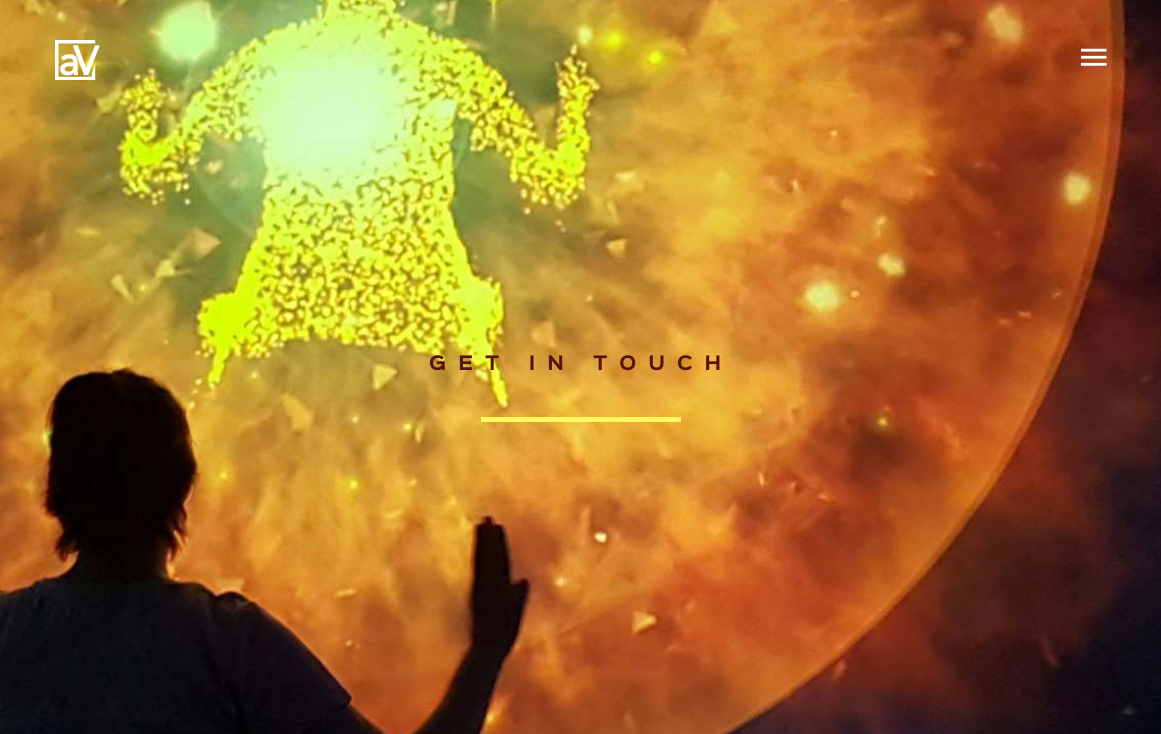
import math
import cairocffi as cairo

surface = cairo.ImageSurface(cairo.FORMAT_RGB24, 1161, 734)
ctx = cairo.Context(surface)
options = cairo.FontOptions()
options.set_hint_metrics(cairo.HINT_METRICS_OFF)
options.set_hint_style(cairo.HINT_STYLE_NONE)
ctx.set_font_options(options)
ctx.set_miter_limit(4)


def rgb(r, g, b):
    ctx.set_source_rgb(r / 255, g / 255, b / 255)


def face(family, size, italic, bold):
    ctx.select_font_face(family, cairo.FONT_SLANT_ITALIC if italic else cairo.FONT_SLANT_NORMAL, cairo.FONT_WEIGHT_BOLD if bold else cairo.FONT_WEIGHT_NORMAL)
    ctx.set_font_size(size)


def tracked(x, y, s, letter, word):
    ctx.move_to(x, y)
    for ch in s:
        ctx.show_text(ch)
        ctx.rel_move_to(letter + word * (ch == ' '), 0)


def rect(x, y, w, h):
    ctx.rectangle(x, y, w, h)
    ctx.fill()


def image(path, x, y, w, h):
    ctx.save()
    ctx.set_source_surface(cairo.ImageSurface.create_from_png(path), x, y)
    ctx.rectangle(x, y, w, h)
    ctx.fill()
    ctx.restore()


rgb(255, 255, 255)
ctx.paint()
image('image2.png', 0, 0, 1161, 734)
image('image0.png', 55, 40, 45, 40)
image('image1.png', 1081, 48, 26, 18)
face('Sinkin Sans', 18, 0, 1)
rgb(89, 18, 18)
tracked(429, 370, 'GET IN TOUCH', 12, 0)
rgb(255, 248, 95)
rect(481, 417, 200, 5)
surface.write_to_png('render.png')
